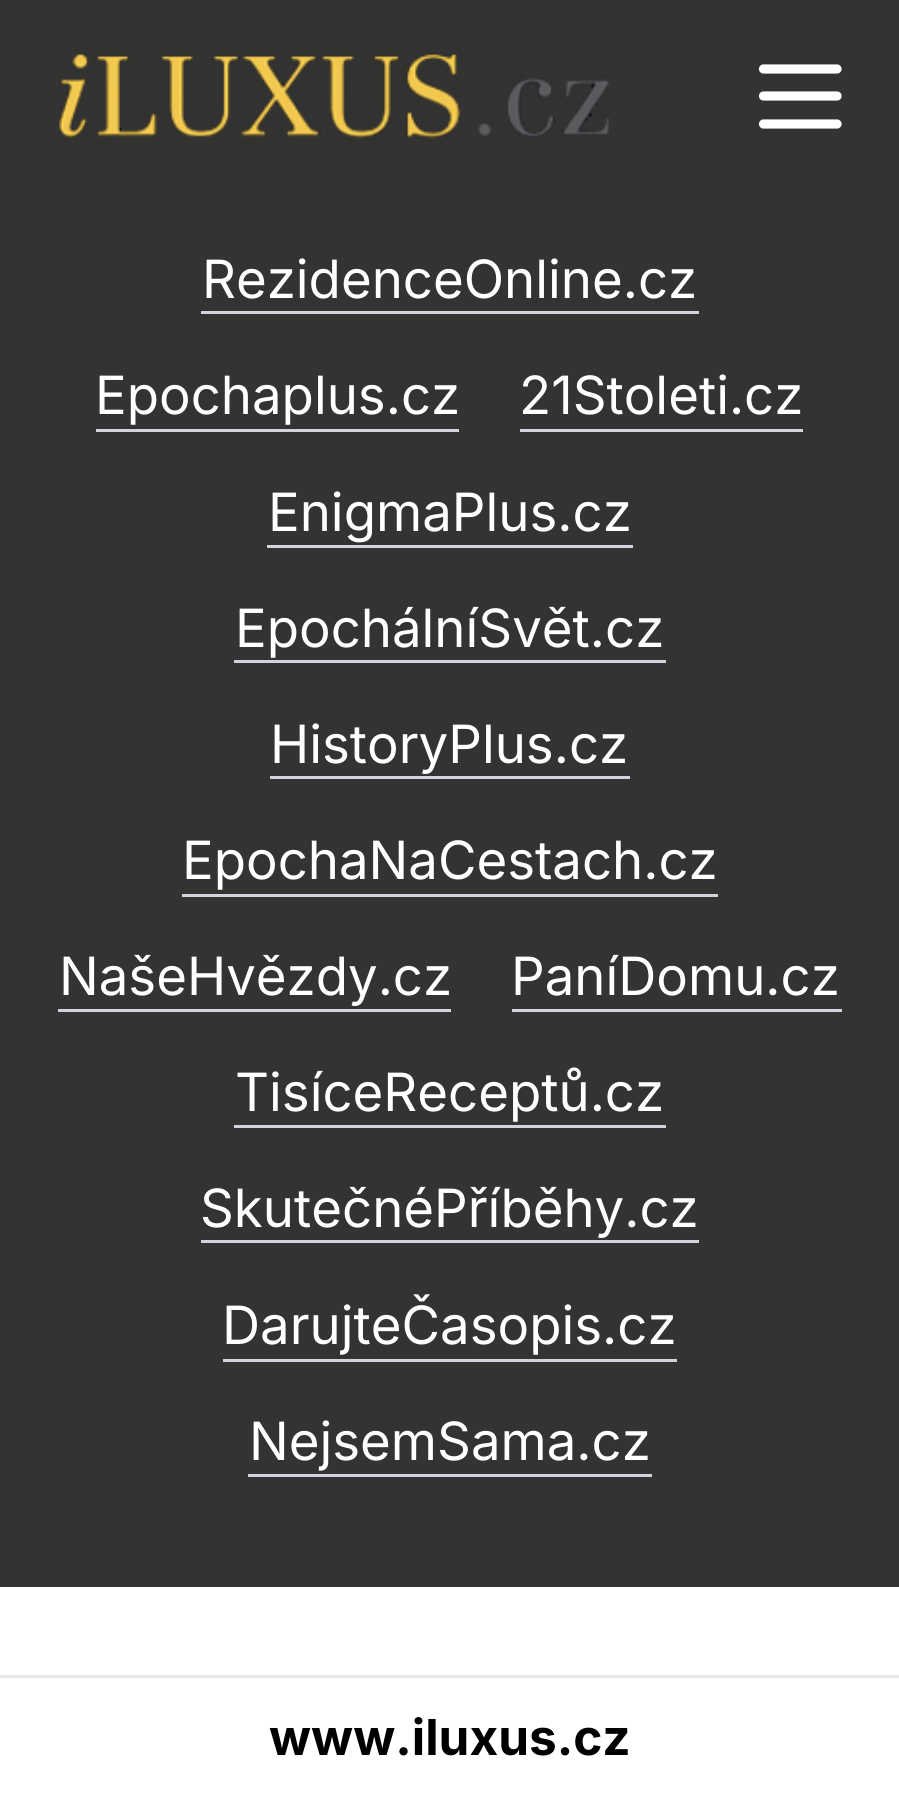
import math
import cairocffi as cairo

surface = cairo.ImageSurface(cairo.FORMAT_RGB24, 899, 1803)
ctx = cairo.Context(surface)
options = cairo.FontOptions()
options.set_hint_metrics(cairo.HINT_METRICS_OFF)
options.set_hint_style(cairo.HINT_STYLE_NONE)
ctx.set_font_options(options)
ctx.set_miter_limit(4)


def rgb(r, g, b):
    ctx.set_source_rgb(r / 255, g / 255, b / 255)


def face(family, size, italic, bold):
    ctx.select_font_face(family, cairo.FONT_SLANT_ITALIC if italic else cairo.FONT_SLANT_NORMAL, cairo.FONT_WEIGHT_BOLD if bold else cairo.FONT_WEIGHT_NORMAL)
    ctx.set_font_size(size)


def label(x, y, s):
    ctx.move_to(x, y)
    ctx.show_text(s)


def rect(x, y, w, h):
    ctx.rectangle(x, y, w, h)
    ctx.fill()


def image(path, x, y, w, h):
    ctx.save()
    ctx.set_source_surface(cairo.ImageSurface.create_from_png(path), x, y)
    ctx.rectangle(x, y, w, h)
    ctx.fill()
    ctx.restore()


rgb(255, 255, 255)
ctx.paint()
rgb(51, 51, 51)
rect(0, 0, 899, 1587)
image('image0.png', 59, 44, 550, 105)
ctx.new_path()
ctx.move_to(763.5, 69)
ctx.line_to(837, 69)
ctx.move_to(763.5, 96)
ctx.line_to(837, 96)
ctx.move_to(763.5, 124)
ctx.line_to(837, 124)
rgb(255, 255, 255)
ctx.set_line_width(9.2)
ctx.set_line_cap(cairo.LINE_CAP_ROUND)
ctx.set_line_join(cairo.LINE_JOIN_ROUND)
ctx.stroke()
face('Inter', 52.75, 0, 0)
label(202, 298, 'RezidenceOnline.cz')
rgb(209, 213, 219)
rect(201, 311, 498, 3)
rgb(255, 255, 255)
label(95, 414, 'Epochaplus.cz')
rgb(209, 213, 219)
rect(96, 429, 363, 3)
rgb(255, 255, 255)
label(519, 414, '21Stoleti.cz')
rgb(209, 213, 219)
rect(520, 429, 283, 3)
rgb(255, 255, 255)
label(268, 531, 'EnigmaPlus.cz')
rgb(209, 213, 219)
rect(267, 545, 366, 3)
rgb(255, 255, 255)
label(235, 647, 'EpochálníSvět.cz')
rgb(209, 213, 219)
rect(234, 660, 432, 3)
rgb(255, 255, 255)
label(270, 763, 'HistoryPlus.cz')
rgb(209, 213, 219)
rect(270, 776, 360, 3)
rgb(255, 255, 255)
label(182, 879, 'EpochaNaCestach.cz')
rgb(209, 213, 219)
rect(182, 894, 536, 3)
rgb(255, 255, 255)
label(59, 995, 'NašeHvězdy.cz')
rgb(209, 213, 219)
rect(58, 1009, 393, 3)
rgb(255, 255, 255)
label(511, 995, 'PaníDomu.cz')
rgb(209, 213, 219)
rect(512, 1009, 330, 3)
rgb(255, 255, 255)
label(235, 1111, 'TisíceReceptů.cz')
rgb(209, 213, 219)
rect(234, 1125, 432, 3)
rgb(255, 255, 255)
label(200, 1227, 'SkutečnéPříběhy.cz')
rgb(209, 213, 219)
rect(201, 1240, 498, 3)
rgb(255, 255, 255)
label(222, 1344, 'DarujteČasopis.cz')
rgb(209, 213, 219)
rect(223, 1359, 454, 3)
rgb(255, 255, 255)
label(249, 1460, 'NejsemSama.cz')
rgb(209, 213, 219)
rect(248, 1474, 404, 3)
rgb(229, 231, 235)
rect(0, 1675, 899, 3)
face('Inter', 49.5, 0, 1)
rgb(0, 0, 0)
label(269, 1755, 'www.iluxus.cz')
surface.write_to_png('render.png')
